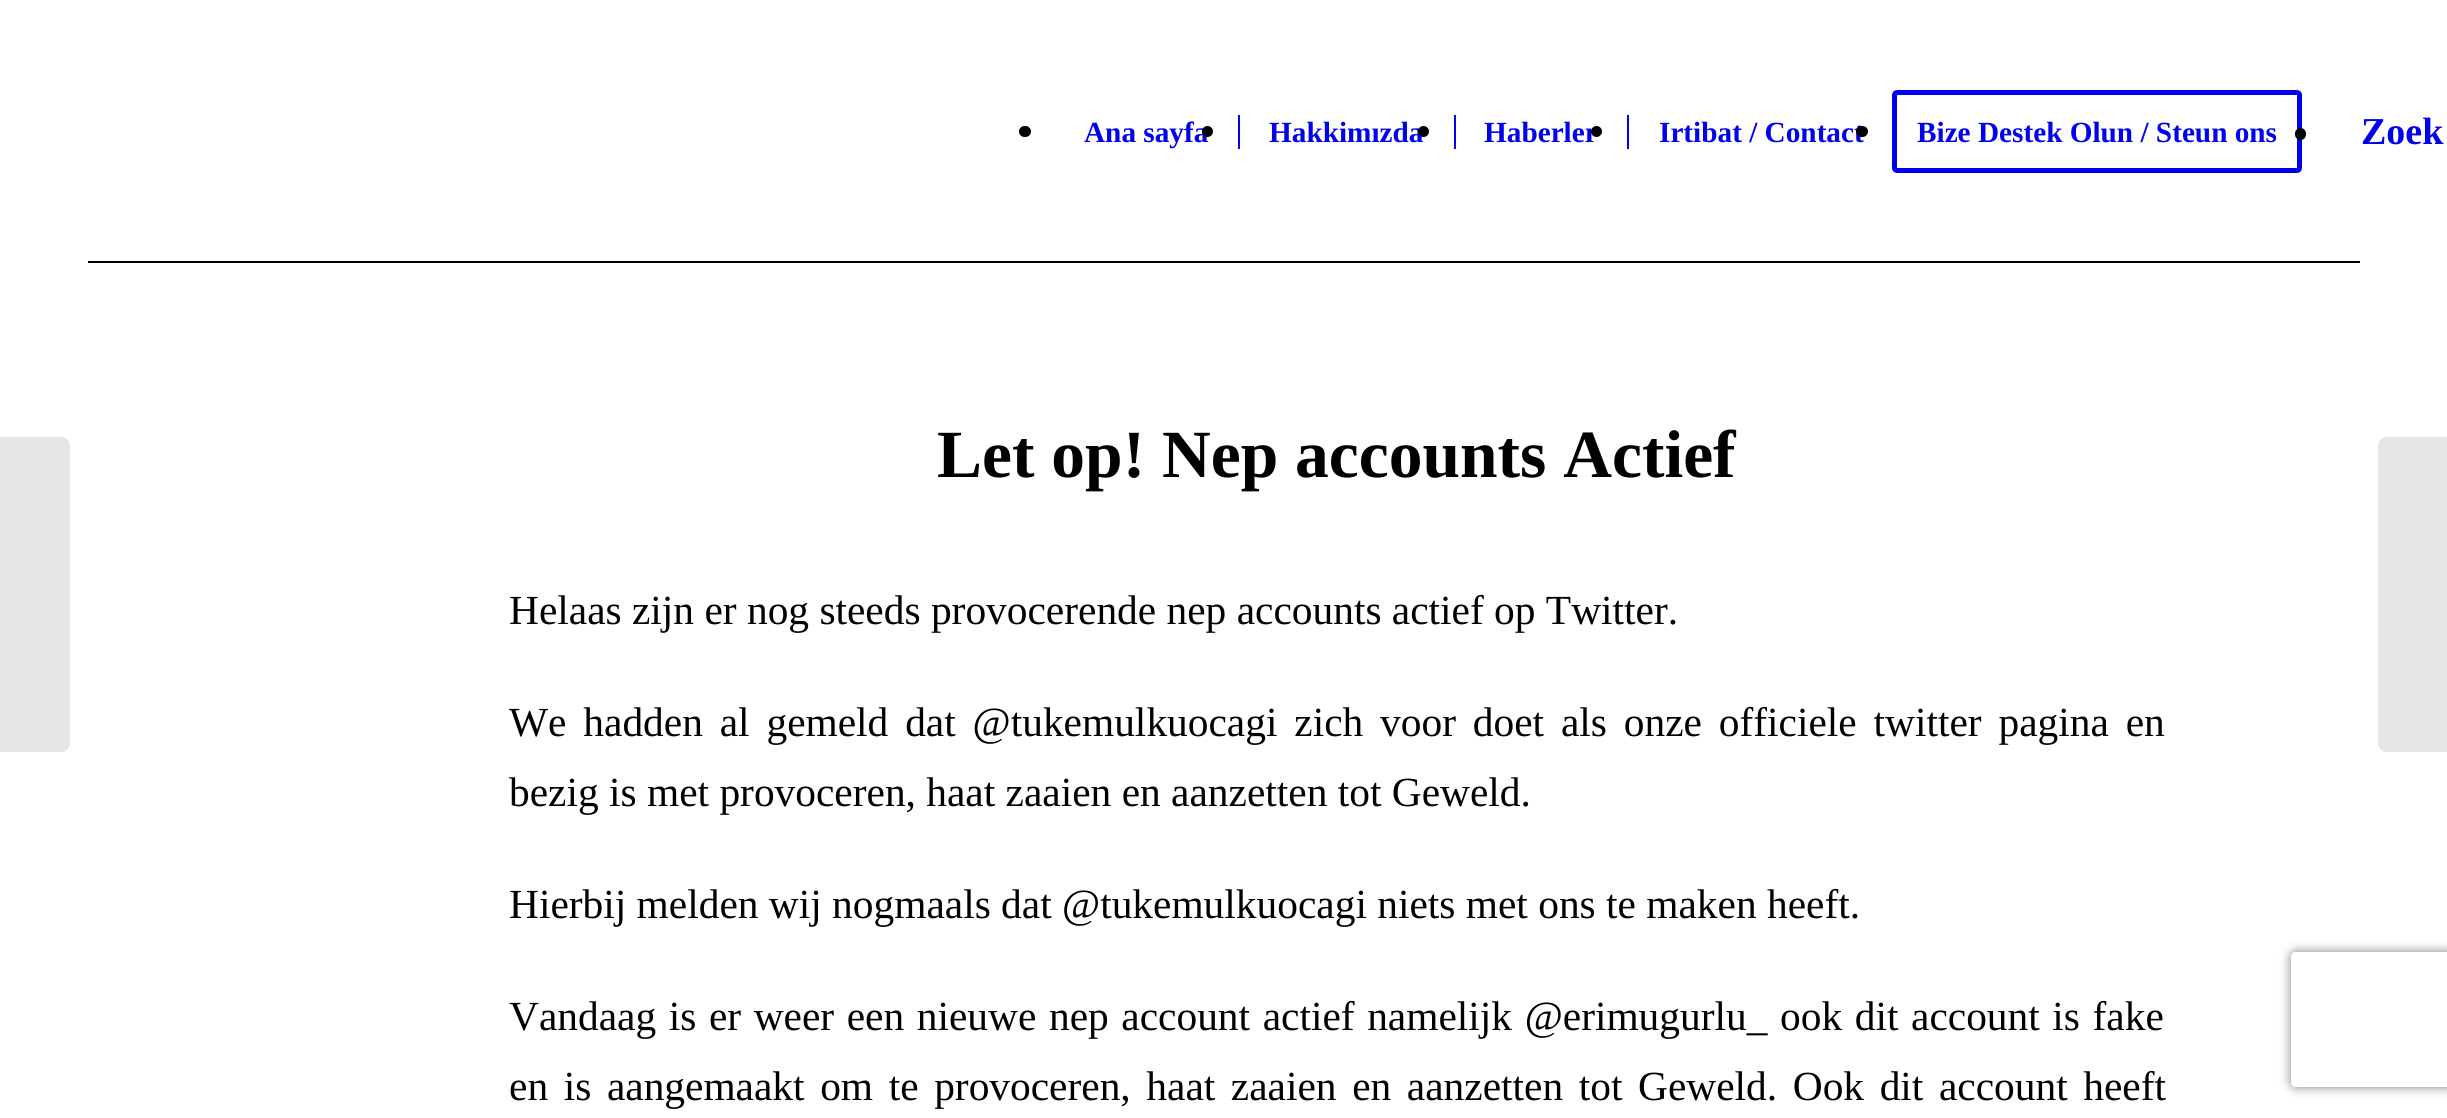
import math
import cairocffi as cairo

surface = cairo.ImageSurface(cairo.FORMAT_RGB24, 2447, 1118)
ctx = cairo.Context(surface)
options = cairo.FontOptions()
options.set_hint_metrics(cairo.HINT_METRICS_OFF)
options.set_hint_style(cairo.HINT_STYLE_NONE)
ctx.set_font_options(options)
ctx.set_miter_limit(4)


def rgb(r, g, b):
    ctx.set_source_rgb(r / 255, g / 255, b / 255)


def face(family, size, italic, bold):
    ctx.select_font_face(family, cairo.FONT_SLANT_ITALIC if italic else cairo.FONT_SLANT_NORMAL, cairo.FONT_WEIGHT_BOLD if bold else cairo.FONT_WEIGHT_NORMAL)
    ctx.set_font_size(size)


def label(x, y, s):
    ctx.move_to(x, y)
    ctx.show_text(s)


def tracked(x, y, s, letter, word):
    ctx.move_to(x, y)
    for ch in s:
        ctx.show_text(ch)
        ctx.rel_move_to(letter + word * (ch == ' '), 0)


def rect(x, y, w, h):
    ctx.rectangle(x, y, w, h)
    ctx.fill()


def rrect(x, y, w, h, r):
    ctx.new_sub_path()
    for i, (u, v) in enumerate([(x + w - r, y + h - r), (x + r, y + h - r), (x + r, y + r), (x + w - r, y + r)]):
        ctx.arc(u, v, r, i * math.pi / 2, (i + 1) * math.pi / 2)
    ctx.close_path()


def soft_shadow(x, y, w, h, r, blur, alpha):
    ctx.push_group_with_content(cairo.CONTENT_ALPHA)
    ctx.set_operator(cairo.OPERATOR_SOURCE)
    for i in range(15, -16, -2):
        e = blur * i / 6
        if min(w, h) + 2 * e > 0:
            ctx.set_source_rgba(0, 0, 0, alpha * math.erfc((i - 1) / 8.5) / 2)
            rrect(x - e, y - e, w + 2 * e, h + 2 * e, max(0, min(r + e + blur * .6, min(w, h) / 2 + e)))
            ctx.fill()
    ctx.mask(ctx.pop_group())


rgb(255, 255, 255)
ctx.paint()
rgb(0, 0, 0)
rrect(1019, 126, 12, 11, 5.5)
ctx.fill()
face('Liberation Serif', 29.25, 0, 1)
rgb(0, 0, 238)
label(1084, 142, 'Ana sayfa')
rgb(0, 0, 0)
ctx.new_path()
ctx.arc(1207.5, 131.5, 5.5, 0, 2 * math.pi)
ctx.fill()
rgb(0, 0, 238)
label(1269, 142, 'Hakkimızda')
rect(1238, 115, 2, 34)
rgb(0, 0, 0)
ctx.new_path()
ctx.arc(1423.5, 131.5, 5.5, 0, 2 * math.pi)
ctx.fill()
rgb(0, 0, 238)
label(1484, 142, 'Haberler')
rect(1454, 115, 2, 34)
rgb(0, 0, 0)
ctx.new_path()
ctx.arc(1596.5, 131.5, 5.5, 0, 2 * math.pi)
ctx.fill()
rgb(0, 0, 238)
label(1659, 142, 'Irtibat / Contact')
rect(1627, 115, 2, 34)
rgb(0, 0, 0)
rrect(1856, 126, 12, 11, 5.5)
ctx.fill()
rrect(1894.5, 92.5, 405, 78, 2.5)
rgb(0, 0, 238)
ctx.set_line_width(5)
ctx.stroke()
label(1917, 142, 'Bize Destek Olun / Steun ons')
rgb(0, 0, 0)
rrect(2295, 128, 11, 12, 5.5)
ctx.fill()
face('Liberation Serif', 38, 0, 1)
rgb(0, 0, 238)
label(2361, 144, 'Zoek')
rgb(230, 230, 230)
ctx.new_path()
ctx.move_to(0, 437)
ctx.line_to(61, 437)
ctx.curve_to(66, 437, 70, 441, 70, 446)
ctx.line_to(70, 743)
ctx.curve_to(70, 748, 66, 752, 61, 752)
ctx.line_to(0, 752)
ctx.close_path()
ctx.fill()
rgb(0, 0, 0)
rect(88, 261, 2272, 2)
face('Liberation Serif', 67.5, 0, 1)
label(937, 477, 'Let op! Nep accounts Actief')
face('Liberation Serif', 41.4, 0, 0)
label(509, 624, 'Helaas zijn er nog steeds provocerende nep accounts actief op Twitter.')
tracked(509, 736, 'We hadden al gemeld dat @tukemulkuocagi zich voor doet als onze officiele twitter pagina en', 0, 6.5)
label(509, 806, 'bezig is met provoceren, haat zaaien en aanzetten tot Geweld.')
label(509, 918, 'Hierbij melden wij nogmaals dat @tukemulkuocagi niets met ons te maken heeft.')
tracked(509, 1030, 'Vandaag is er weer een nieuwe nep account actief namelijk @erimugurlu_ ook dit account is fake', 0, 2.25)
tracked(509, 1100, 'en is aangemaakt om te provoceren, haat zaaien en aanzetten tot Geweld. Ook dit account heeft', 0, 5.25)
rgb(230, 230, 230)
ctx.new_path()
ctx.move_to(2387, 437)
ctx.line_to(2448, 437)
ctx.line_to(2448, 752)
ctx.line_to(2387, 752)
ctx.curve_to(2382, 752, 2378, 748, 2378, 743)
ctx.line_to(2378, 446)
ctx.curve_to(2378, 441, 2382, 437, 2387, 437)
ctx.close_path()
ctx.fill()
ctx.save()
ctx.set_fill_rule(cairo.FILL_RULE_EVEN_ODD)
ctx.new_path()
ctx.move_to(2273, 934)
ctx.line_to(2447, 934)
ctx.line_to(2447, 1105)
ctx.line_to(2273, 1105)
ctx.close_path()
ctx.move_to(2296, 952)
ctx.line_to(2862, 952)
ctx.curve_to(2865, 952, 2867, 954, 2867, 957)
ctx.line_to(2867, 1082)
ctx.curve_to(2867, 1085, 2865, 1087, 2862, 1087)
ctx.line_to(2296, 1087)
ctx.curve_to(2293, 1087, 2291, 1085, 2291, 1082)
ctx.line_to(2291, 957)
ctx.curve_to(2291, 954, 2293, 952, 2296, 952)
ctx.close_path()
ctx.clip()
rgb(128, 128, 128)
soft_shadow(2291, 952, 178, 135, 5, 5.5, 1)
ctx.restore()
surface.write_to_png('render.png')
